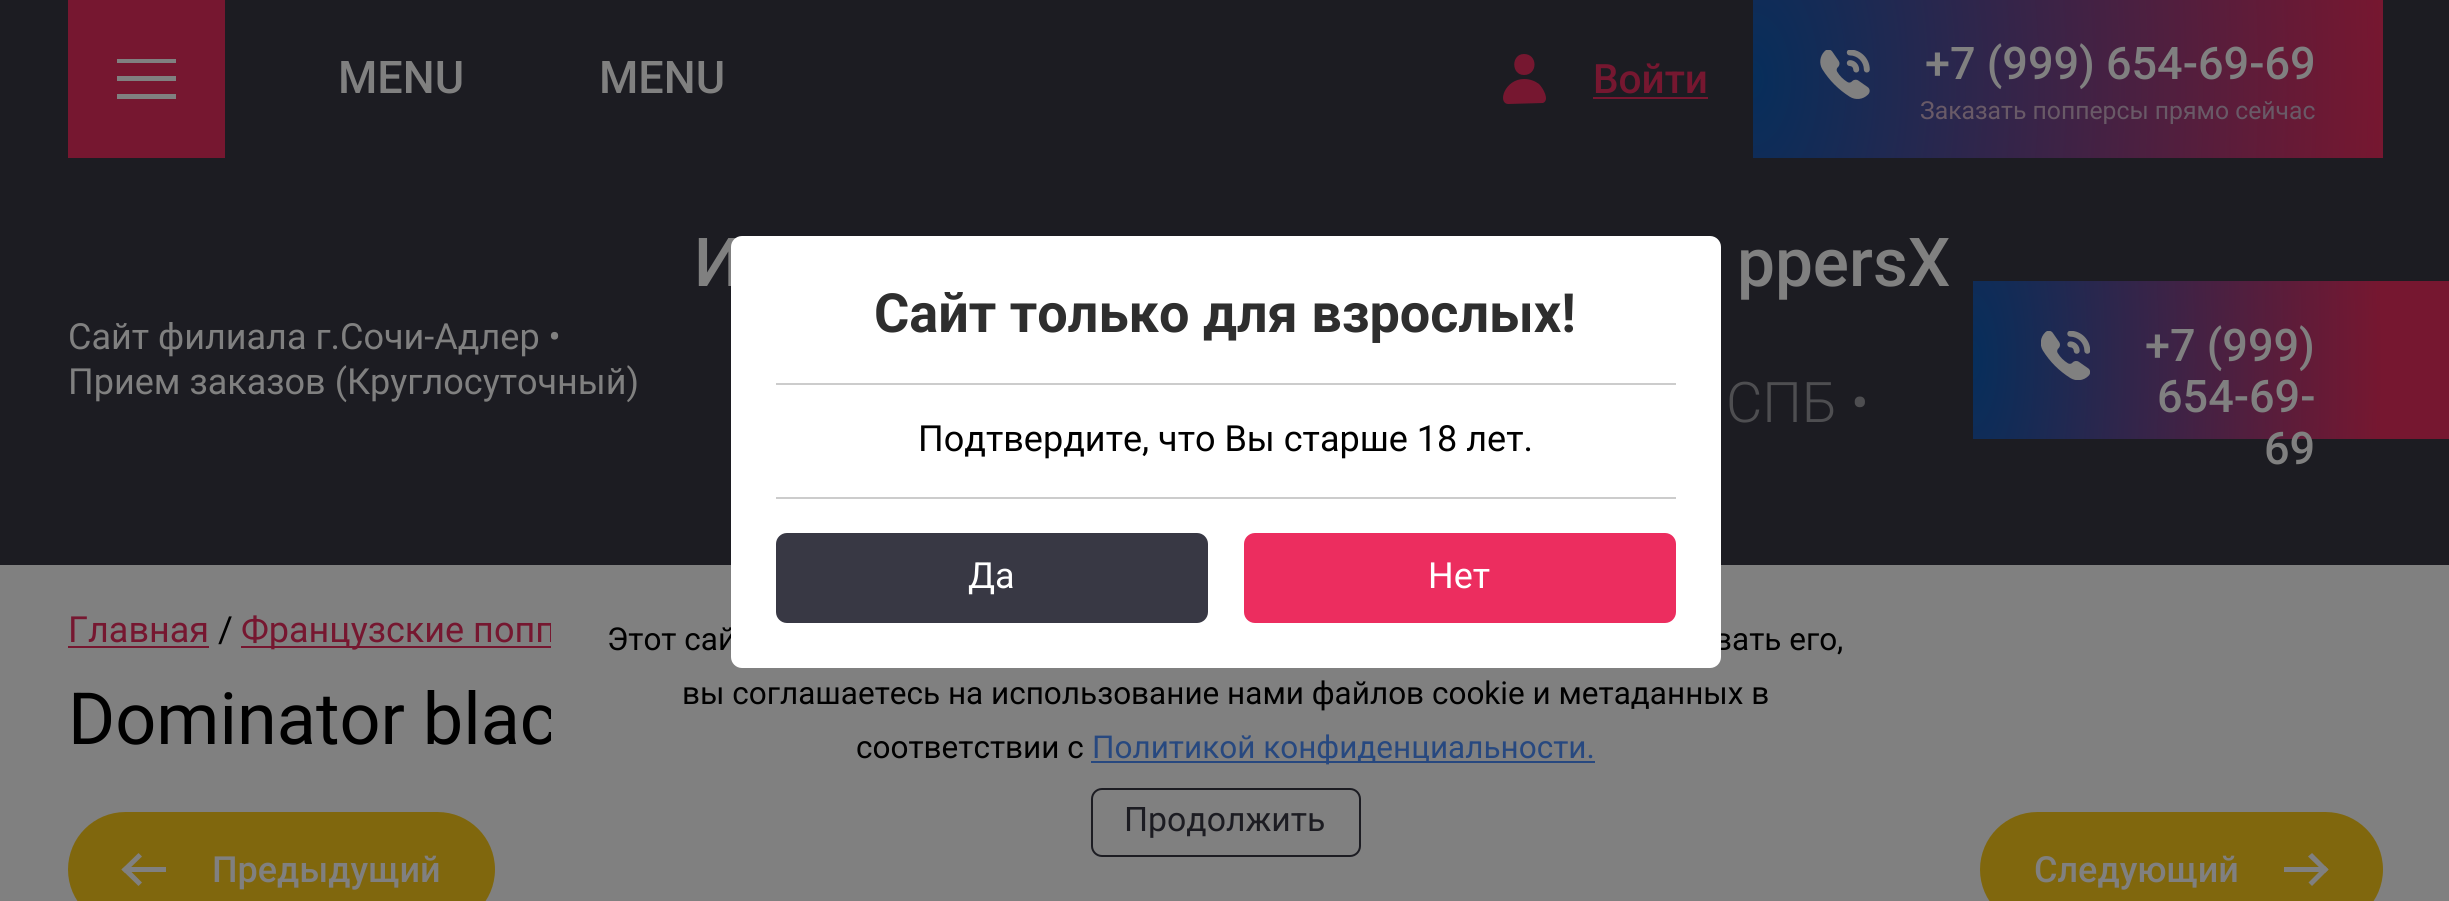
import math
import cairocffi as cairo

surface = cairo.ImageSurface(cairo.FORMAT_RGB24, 2449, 901)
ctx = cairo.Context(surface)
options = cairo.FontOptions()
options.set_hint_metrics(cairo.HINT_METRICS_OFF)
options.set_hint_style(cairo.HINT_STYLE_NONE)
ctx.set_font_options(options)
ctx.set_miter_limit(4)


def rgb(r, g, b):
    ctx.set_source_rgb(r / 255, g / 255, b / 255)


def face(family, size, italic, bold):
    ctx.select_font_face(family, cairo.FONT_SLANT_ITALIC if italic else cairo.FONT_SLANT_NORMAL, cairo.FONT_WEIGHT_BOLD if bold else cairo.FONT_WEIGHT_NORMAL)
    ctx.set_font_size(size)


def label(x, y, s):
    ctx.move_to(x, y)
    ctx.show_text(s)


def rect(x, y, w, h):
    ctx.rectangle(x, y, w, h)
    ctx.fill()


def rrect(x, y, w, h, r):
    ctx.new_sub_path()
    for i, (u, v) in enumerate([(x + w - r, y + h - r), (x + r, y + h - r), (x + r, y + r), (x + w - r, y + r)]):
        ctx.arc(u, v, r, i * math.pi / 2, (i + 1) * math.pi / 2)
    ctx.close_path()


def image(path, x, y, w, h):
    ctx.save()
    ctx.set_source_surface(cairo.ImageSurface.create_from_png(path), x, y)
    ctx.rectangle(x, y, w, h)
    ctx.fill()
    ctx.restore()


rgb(28, 28, 34)
ctx.paint()
rgb(118, 23, 48)
rect(68, 0, 157, 158)
ctx.save()
ctx.rectangle(117, 59, 59, 40)
ctx.clip()
rgb(128, 128, 128)
ctx.new_path()
ctx.move_to(117, 58)
ctx.line_to(176, 58)
ctx.line_to(176, 63)
ctx.line_to(117, 63)
ctx.close_path()
ctx.move_to(117, 76)
ctx.line_to(176, 76)
ctx.line_to(176, 81)
ctx.line_to(117, 81)
ctx.close_path()
ctx.move_to(117, 94)
ctx.line_to(176, 94)
ctx.line_to(176, 99)
ctx.line_to(117, 99)
ctx.close_path()
ctx.fill()
ctx.restore()
face('Roboto Medium', 45, 0, 0)
rgb(128, 128, 128)
label(338, 93, 'MENU')
label(599, 93, 'MENU')
rgb(118, 23, 48)
ctx.new_path()
ctx.move_to(1524, 75)
ctx.curve_to(1538, 75, 1538, 54, 1524, 54)
ctx.curve_to(1511, 54, 1511, 75, 1524, 75)
ctx.close_path()
ctx.move_to(1524, 79)
ctx.curve_to(1505, 79, 1497, 103, 1508, 104)
ctx.line_to(1543, 103)
ctx.curve_to(1550, 100, 1543, 88, 1539, 84)
ctx.curve_to(1535, 81, 1530, 79, 1524, 79)
ctx.close_path()
ctx.fill()
face('Roboto Medium', 40.5, 0, 0)
label(1593, 93, 'Войти')
rect(1593, 97, 115, 2)
gradient = cairo.RadialGradient(0, 0, 0, 0, 0, 1)
gradient.set_matrix(cairo.Matrix(1 / 630, 0, 0, 1 / 1096, -1 * 1753 / 630, -1 * 79 / 1096))
gradient.add_color_stop_rgba(0, 0.027, 0.18, 0.357, 1)
gradient.add_color_stop_rgba(1, 0.463, 0.09, 0.188, 1)
ctx.set_source(gradient)
rect(1753, 0, 630, 158)
image('image0.png', 1820, 50, 50, 49)
face('Roboto Medium', 45, 0, 0)
rgb(128, 128, 128)
label(1925, 79, '+7 (999) 654-69-69')
face('Roboto', 24.75, 0, 0)
rgb(105, 90, 103)
label(1920, 119, 'Заказать попперсы прямо сейчас')
face('Roboto', 36, 0, 0)
rgb(128, 128, 128)
label(68, 349, 'Сайт филиала г.Сочи-Адлер •')
label(68, 394, 'Прием заказов (Круглосуточный)')
face('Roboto Medium', 67.5, 0, 0)
label(694, 286, 'И')
label(1737, 286, 'ppersX')
face('Roboto Light', 56, 0, 0)
rgb(78, 78, 81)
label(1726, 422, 'СПБ •')
gradient = cairo.RadialGradient(0, 0, 0, 0, 0, 1)
gradient.set_matrix(cairo.Matrix(1 / 410, 0, 0, 1 / 1096, -1 * 1973 / 410, -1 * 360 / 1096))
gradient.add_color_stop_rgba(0, 0.027, 0.18, 0.357, 1)
gradient.add_color_stop_rgba(1, 0.463, 0.09, 0.188, 1)
ctx.set_source(gradient)
rect(1973, 281, 410, 158)
image('image1.png', 2041, 331, 49, 49)
face('Roboto Medium', 45, 0, 0)
rgb(128, 128, 128)
label(2145, 361, '+7 (999)')
label(2157, 412, '654-69-')
label(2264, 464, '69')
rgb(118, 23, 48)
rect(2383, 281, 66, 158)
rgb(128, 128, 128)
rect(0, 565, 2449, 336)
face('Roboto', 36, 0, 0)
rgb(118, 23, 48)
label(68, 642, 'Главная')
rect(68, 646, 141, 2)
rgb(0, 0, 0)
label(218, 642, '/')
rgb(118, 23, 48)
rect(241, 646, 310, 2)
label(241, 642, 'Французские попп')
face('Roboto', 72, 0, 0)
rgb(0, 0, 0)
label(68, 744, 'Dominator blac')
rgb(128, 103, 13)
rrect(68, 812, 427, 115, 57.5)
ctx.fill()
rgb(128, 128, 128)
rect(126, 867, 40, 5)
ctx.new_path()
ctx.move_to(138.5, 853)
ctx.line_to(142, 856.5)
ctx.line_to(125, 873)
ctx.line_to(121.5, 869.5)
ctx.close_path()
ctx.fill()
ctx.new_path()
ctx.move_to(142, 882.5)
ctx.line_to(138.5, 886)
ctx.line_to(121.5, 869.5)
ctx.line_to(125.5, 866)
ctx.close_path()
ctx.fill()
face('Roboto Medium', 36, 0, 0)
label(212, 882, 'Предыдущий')
rgb(128, 103, 13)
rrect(1980, 812, 403, 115, 57.5)
ctx.fill()
rgb(128, 128, 128)
label(2034, 882, 'Следующий')
rect(2284, 867, 40, 5)
ctx.new_path()
ctx.move_to(2312, 886)
ctx.line_to(2308.5, 882.5)
ctx.line_to(2325, 866)
ctx.line_to(2328.5, 869.5)
ctx.close_path()
ctx.fill()
ctx.new_path()
ctx.move_to(2308, 856.5)
ctx.line_to(2312, 853)
ctx.line_to(2328.5, 869.5)
ctx.line_to(2325, 873)
ctx.close_path()
ctx.fill()
rrect(551, 569, 1350, 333, 11)
ctx.fill()
face('Roboto', 31.5, 0, 0)
rgb(0, 0, 0)
label(607, 650, 'Этот сай')
label(1714, 650, 'вать его,')
rgb(255, 255, 255)
rrect(731, 236, 990, 432, 11)
ctx.fill()
face('Roboto', 54, 0, 1)
rgb(46, 46, 46)
label(874, 332, 'Сайт только для взрослых!')
rgb(204, 204, 204)
rect(776, 383, 900, 2)
rect(776, 497, 900, 2)
face('Roboto', 36, 0, 0)
rgb(0, 0, 0)
label(918, 451, 'Подтвердите, что Вы старше 18 лет.')
rgb(56, 56, 68)
rrect(776, 533, 432, 90, 11)
ctx.fill()
rgb(255, 255, 255)
label(968, 588, 'Да')
rgb(236, 45, 95)
rrect(1244, 533, 432, 90, 11)
ctx.fill()
rgb(255, 255, 255)
label(1428, 588, 'Нет')
face('Roboto', 31.5, 0, 0)
rgb(0, 0, 0)
label(682, 704, 'вы соглашаетесь на использование нами файлов cookie и метаданных в')
label(856, 758, 'соответствии с')
rgb(39, 72, 127)
rect(1091, 761, 504, 2)
label(1092, 758, 'Политикой конфиденциальности.')
rrect(1092, 789, 268, 67, 10)
rgb(28, 28, 34)
ctx.stroke()
face('Roboto', 33.75, 0, 0)
label(1124, 831, 'Продолжить')
surface.write_to_png('render.png')
